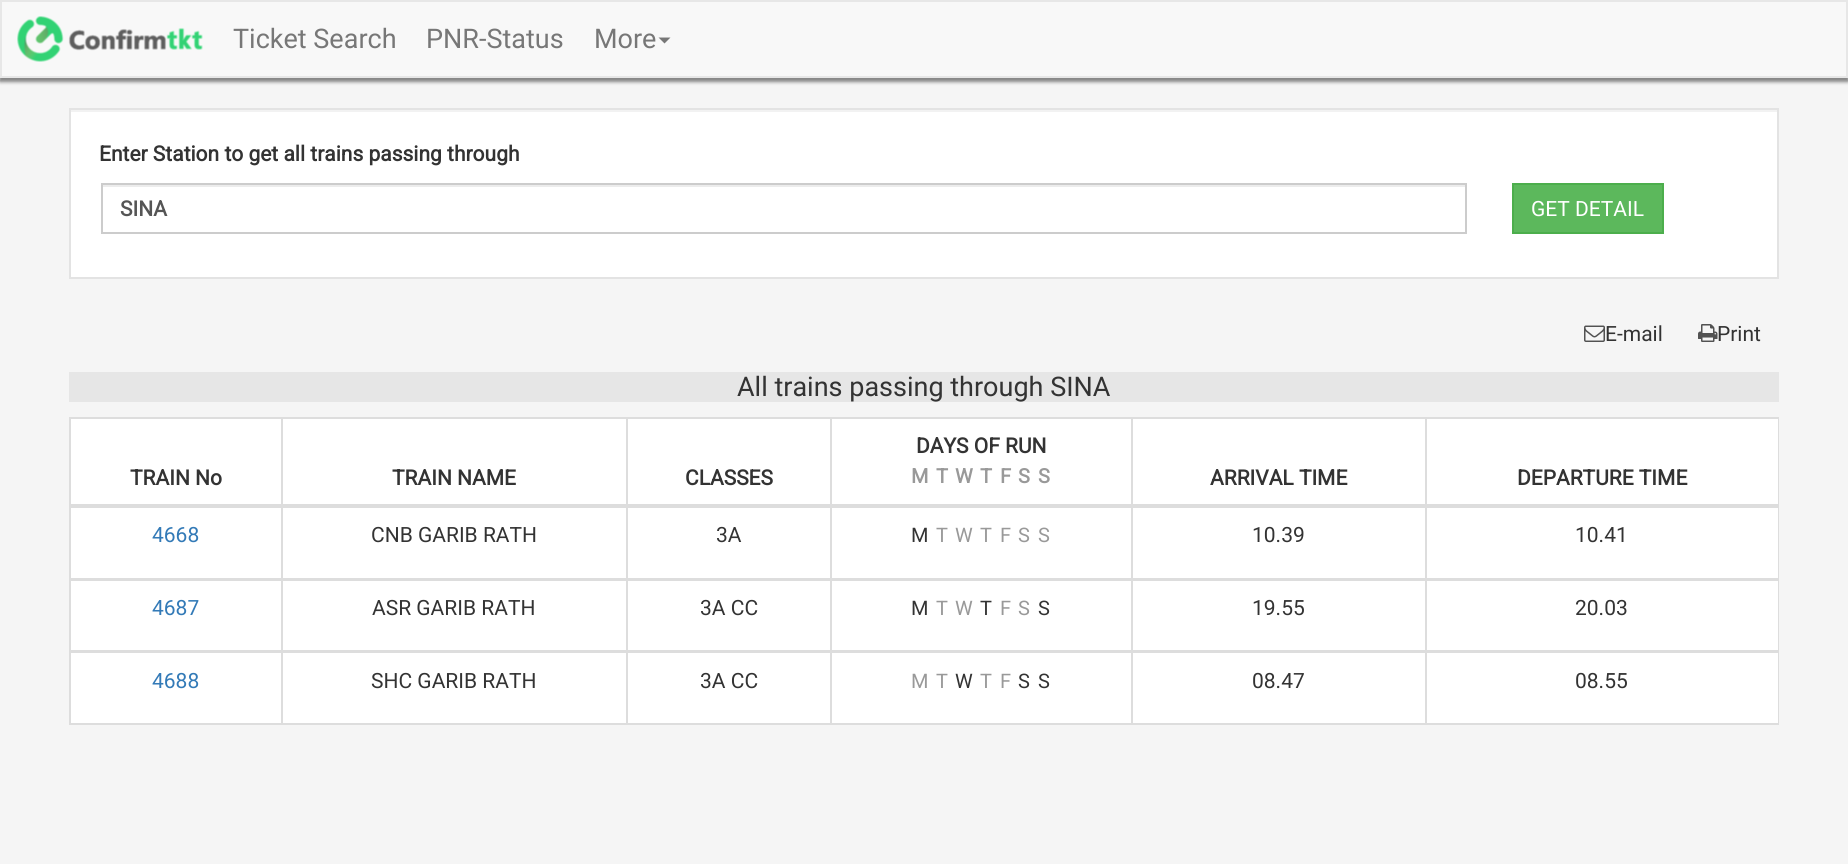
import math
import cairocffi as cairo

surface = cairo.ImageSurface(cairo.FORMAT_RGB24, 1848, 864)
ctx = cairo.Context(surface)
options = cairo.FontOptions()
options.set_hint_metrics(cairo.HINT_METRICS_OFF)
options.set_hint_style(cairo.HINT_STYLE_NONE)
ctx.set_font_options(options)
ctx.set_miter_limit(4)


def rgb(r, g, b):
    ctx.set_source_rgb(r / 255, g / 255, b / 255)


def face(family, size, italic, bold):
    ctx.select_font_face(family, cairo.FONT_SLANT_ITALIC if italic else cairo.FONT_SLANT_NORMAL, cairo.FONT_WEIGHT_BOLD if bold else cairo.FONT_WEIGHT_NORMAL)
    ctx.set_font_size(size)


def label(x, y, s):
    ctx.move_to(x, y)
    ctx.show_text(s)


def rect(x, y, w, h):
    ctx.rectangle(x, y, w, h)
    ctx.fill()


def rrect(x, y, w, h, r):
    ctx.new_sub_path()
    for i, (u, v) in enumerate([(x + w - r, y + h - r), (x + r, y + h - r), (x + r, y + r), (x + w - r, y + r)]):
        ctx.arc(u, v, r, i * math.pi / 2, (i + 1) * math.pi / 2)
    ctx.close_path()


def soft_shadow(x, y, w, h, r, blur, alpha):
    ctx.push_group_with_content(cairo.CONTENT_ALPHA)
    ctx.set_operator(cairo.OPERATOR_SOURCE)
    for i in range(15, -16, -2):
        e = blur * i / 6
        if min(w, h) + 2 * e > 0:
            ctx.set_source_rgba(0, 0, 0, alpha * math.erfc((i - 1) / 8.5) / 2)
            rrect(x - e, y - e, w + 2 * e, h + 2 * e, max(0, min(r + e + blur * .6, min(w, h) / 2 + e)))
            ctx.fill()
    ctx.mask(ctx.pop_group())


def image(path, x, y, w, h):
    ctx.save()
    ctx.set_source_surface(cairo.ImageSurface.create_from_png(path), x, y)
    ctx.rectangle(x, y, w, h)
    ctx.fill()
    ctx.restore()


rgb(245, 245, 245)
ctx.paint()
rgb(136, 136, 136)
soft_shadow(0, 3, 1848, 78, 0, 2, 1)
soft_shadow(0, 3, 1848, 78, 0, 2, 1)
rgb(248, 248, 248)
ctx.rectangle(1, 1, 1846, 76)
ctx.fill_preserve()
rgb(231, 231, 231)
ctx.stroke()
image('image0.png', 17, 16, 186, 46)
face('Roboto', 27, 0, 0)
rgb(119, 119, 119)
label(233, 48, 'Ticket Search')
label(426, 48, 'PNR-Status')
label(594, 48, 'More')
ctx.new_path()
ctx.move_to(658.5, 37.5)
ctx.line_to(670.5, 37.5)
ctx.line_to(664.5, 43.5)
ctx.close_path()
ctx.fill()
rgb(255, 255, 255)
rect(71, 112, 1706, 165)
rgb(242, 242, 242)
rect(71, 110, 1707, 2)
ctx.rectangle(70, 109, 1708, 169)
rgb(227, 227, 227)
ctx.stroke()
face('Roboto', 21, 0, 1)
rgb(51, 51, 51)
label(99, 161, 'Enter Station to get all trains passing through')
rgb(236, 236, 236)
rect(102, 185, 1364, 2)
ctx.rectangle(102, 184, 1364, 49)
rgb(204, 204, 204)
ctx.stroke()
rgb(85, 85, 85)
label(120, 216, 'SINA')
rgb(92, 184, 92)
ctx.rectangle(1513, 184, 150, 49)
ctx.fill_preserve()
rgb(76, 174, 76)
ctx.stroke()
face('Roboto', 21, 0, 0)
rgb(255, 255, 255)
label(1531, 216, 'GET DETAIL')
image('image1.png', 1584, 325, 21, 17)
rgb(51, 51, 51)
label(1605, 341, 'E-mail')
image('image2.png', 1698, 324, 20, 18)
label(1717, 341, 'Print')
rgb(230, 230, 230)
rect(69, 372, 1710, 30)
face('Roboto', 27, 0, 0)
rgb(51, 51, 51)
label(737, 396, 'All trains passing through SINA')
rgb(255, 255, 255)
rect(71, 419, 1707, 304)
rgb(221, 221, 221)
rect(69, 417, 1710, 2)
rect(1778, 417, 1, 308)
rect(69, 723, 1710, 2)
rect(69, 417, 2, 308)
face('Roboto', 21, 0, 1)
rgb(51, 51, 51)
label(130, 485, 'TRAIN No')
label(392, 485, 'TRAIN NAME')
label(685, 485, 'CLASSES')
label(916, 453, 'DAYS OF RUN')
face('Roboto', 20, 0, 1)
rgb(153, 153, 153)
label(911, 483, 'M')
label(936, 483, 'T')
label(955, 483, 'W')
label(980, 483, 'T')
label(1000, 483, 'F')
label(1018, 483, 'S')
label(1038, 483, 'S')
face('Roboto', 21, 0, 1)
rgb(51, 51, 51)
label(1210, 485, 'ARRIVAL TIME')
rgb(221, 221, 221)
rect(1425, 507, 354, 1)
rect(1425, 578, 2, 147)
rect(1425, 417, 2, 162)
rect(1131, 507, 296, 1)
rect(1131, 578, 2, 147)
rect(1131, 417, 2, 162)
rect(626, 507, 507, 1)
rect(626, 578, 2, 147)
rect(626, 417, 2, 162)
rect(281, 507, 346, 1)
rect(281, 578, 2, 147)
rect(281, 417, 2, 162)
rect(830, 578, 2, 147)
rect(830, 417, 2, 162)
rect(69, 504, 1710, 3)
rgb(51, 51, 51)
label(1517, 485, 'DEPARTURE TIME')
rgb(221, 221, 221)
rect(69, 507, 213, 1)
face('Roboto', 21, 0, 0)
rgb(51, 122, 183)
label(152, 542, '4668')
rgb(51, 51, 51)
label(371, 542, 'CNB GARIB RATH')
label(716, 542, '3A')
face('Roboto', 20, 0, 0)
label(911, 542, 'M')
rgb(153, 153, 153)
label(936, 542, 'T')
label(955, 542, 'W')
label(980, 542, 'T')
label(1000, 542, 'F')
label(1018, 542, 'S')
label(1038, 542, 'S')
face('Roboto', 21, 0, 0)
rgb(51, 51, 51)
label(1252, 542, '10.39')
label(1575, 542, '10.41')
rgb(221, 221, 221)
rect(69, 578, 1710, 3)
rgb(51, 122, 183)
label(152, 615, '4687')
rgb(51, 51, 51)
label(372, 615, 'ASR GARIB RATH')
label(700, 615, '3A CC')
face('Roboto', 20, 0, 0)
label(911, 615, 'M')
rgb(153, 153, 153)
label(936, 615, 'T')
label(955, 615, 'W')
rgb(51, 51, 51)
label(980, 615, 'T')
rgb(153, 153, 153)
label(1000, 615, 'F')
label(1018, 615, 'S')
rgb(51, 51, 51)
label(1038, 615, 'S')
face('Roboto', 21, 0, 0)
label(1252, 615, '19.55')
label(1575, 615, '20.03')
rgb(221, 221, 221)
rect(69, 650, 1710, 3)
rgb(51, 122, 183)
label(152, 688, '4688')
rgb(51, 51, 51)
label(371, 688, 'SHC GARIB RATH')
label(700, 688, '3A CC')
face('Roboto', 20, 0, 0)
rgb(153, 153, 153)
label(911, 688, 'M')
label(936, 688, 'T')
rgb(51, 51, 51)
label(955, 688, 'W')
rgb(153, 153, 153)
label(980, 688, 'T')
label(1000, 688, 'F')
rgb(51, 51, 51)
label(1018, 688, 'S')
label(1038, 688, 'S')
face('Roboto', 21, 0, 0)
label(1252, 688, '08.47')
label(1575, 688, '08.55')
surface.write_to_png('render.png')
